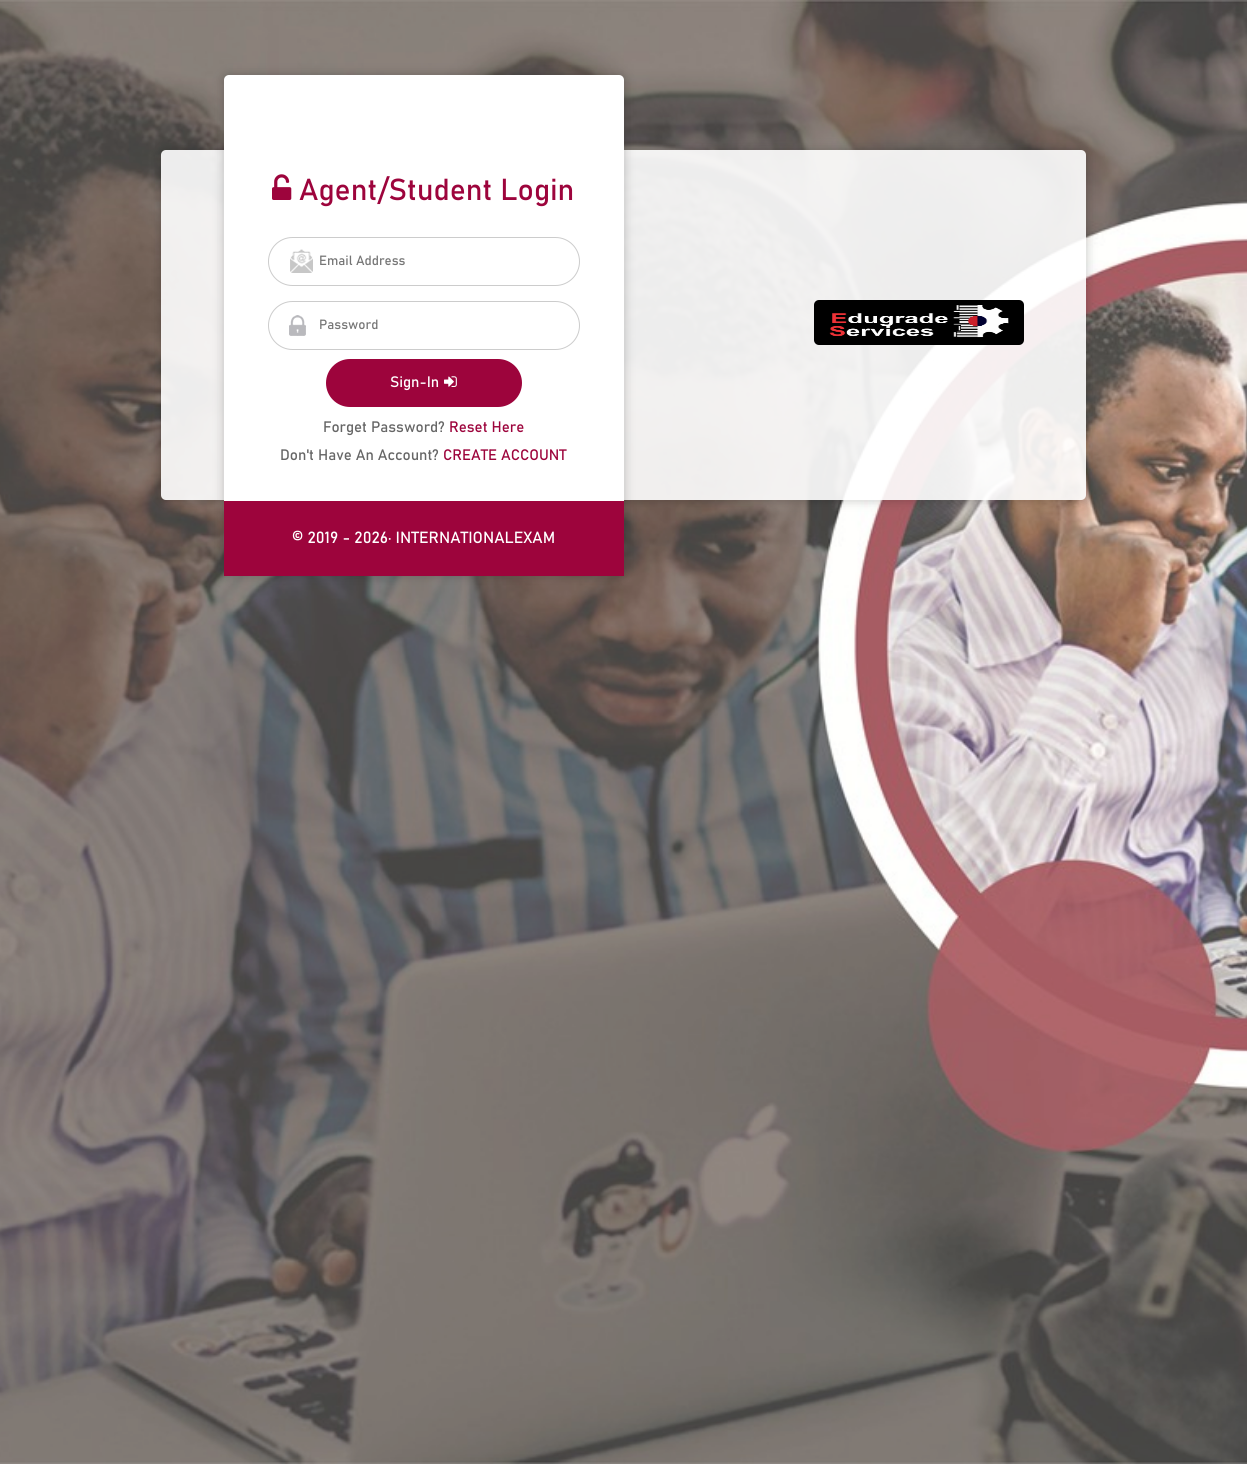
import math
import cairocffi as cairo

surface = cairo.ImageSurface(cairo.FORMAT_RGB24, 1247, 1464)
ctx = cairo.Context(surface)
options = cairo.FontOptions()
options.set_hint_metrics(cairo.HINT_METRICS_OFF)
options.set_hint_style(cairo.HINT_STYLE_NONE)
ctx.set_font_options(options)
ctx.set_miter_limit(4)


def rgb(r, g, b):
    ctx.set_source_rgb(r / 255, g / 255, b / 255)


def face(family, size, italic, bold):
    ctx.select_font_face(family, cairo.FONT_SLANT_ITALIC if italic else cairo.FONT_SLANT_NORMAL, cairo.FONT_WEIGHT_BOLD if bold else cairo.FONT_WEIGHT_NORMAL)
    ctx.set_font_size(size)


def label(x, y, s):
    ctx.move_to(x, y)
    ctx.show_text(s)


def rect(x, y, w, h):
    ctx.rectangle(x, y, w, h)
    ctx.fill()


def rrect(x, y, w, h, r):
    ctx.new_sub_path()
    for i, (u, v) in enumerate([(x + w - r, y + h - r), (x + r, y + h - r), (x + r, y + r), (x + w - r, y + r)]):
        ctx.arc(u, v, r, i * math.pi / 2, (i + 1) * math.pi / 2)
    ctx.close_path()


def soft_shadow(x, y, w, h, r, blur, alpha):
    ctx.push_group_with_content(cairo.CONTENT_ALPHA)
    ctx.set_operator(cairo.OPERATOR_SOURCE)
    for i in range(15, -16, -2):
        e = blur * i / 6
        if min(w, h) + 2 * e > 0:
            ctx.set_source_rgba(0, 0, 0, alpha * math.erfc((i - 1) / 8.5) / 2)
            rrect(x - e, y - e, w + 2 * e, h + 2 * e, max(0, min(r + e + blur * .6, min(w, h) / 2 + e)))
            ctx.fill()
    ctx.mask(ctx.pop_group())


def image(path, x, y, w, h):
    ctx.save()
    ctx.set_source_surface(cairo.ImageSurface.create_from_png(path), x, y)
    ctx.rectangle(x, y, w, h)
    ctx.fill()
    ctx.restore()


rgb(255, 255, 255)
ctx.paint()
image('image0.png', 0, 0, 1247, 1464)
ctx.save()
ctx.set_fill_rule(cairo.FILL_RULE_EVEN_ODD)
ctx.new_path()
ctx.move_to(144, 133)
ctx.line_to(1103, 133)
ctx.line_to(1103, 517)
ctx.line_to(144, 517)
ctx.close_path()
ctx.move_to(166, 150)
ctx.line_to(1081, 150)
ctx.curve_to(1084, 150, 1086, 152, 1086, 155)
ctx.line_to(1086, 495)
ctx.curve_to(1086, 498, 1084, 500, 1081, 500)
ctx.line_to(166, 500)
ctx.curve_to(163, 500, 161, 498, 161, 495)
ctx.line_to(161, 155)
ctx.curve_to(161, 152, 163, 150, 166, 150)
ctx.close_path()
ctx.clip()
rgb(0, 0, 0)
soft_shadow(160, 149, 927, 352, 6, 5, 0.2)
ctx.restore()
ctx.set_source_rgba(1, 1, 1, 0.9)
rrect(161, 150, 925, 350, 5)
ctx.fill()
rgb(0, 0, 0)
soft_shadow(223, 74, 402, 502, 6, 5, 0.2)
rgb(255, 255, 255)
rrect(224, 75, 400, 500, 5)
ctx.fill()
image('image1.png', 272, 174, 20, 26)
face('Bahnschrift', 30, 0, 0)
rgb(157, 4, 60)
label(299, 200, 'Agent/Student Login')
image('image2.png', 290, 249, 23, 24)
rrect(268.5, 237.5, 311, 48, 24)
rgb(204, 204, 204)
ctx.set_line_width(1)
ctx.stroke()
face('Bahnschrift', 13.25, 0, 0)
rgb(117, 117, 117)
label(319, 265, 'Email Address')
image('image3.png', 289, 315, 17, 21)
rrect(268.5, 301.5, 311, 48, 24)
rgb(204, 204, 204)
ctx.stroke()
rgb(117, 117, 117)
label(319, 329, 'Password')
rgb(157, 4, 60)
rrect(325, 358, 198, 50, 25)
ctx.fill_preserve()
rgb(255, 255, 255)
ctx.set_line_width(2)
ctx.stroke()
face('Bahnschrift', 15, 0, 0)
label(390, 387, 'Sign-In')
image('image4.png', 444, 376, 13, 11)
rgb(102, 102, 102)
label(323, 432, 'Forget Password?')
rgb(157, 4, 60)
label(449, 432, 'Reset Here')
rgb(102, 102, 102)
label(280, 460, 'Don\'t Have An Account?')
rgb(157, 4, 60)
label(443, 460, 'CREATE ACCOUNT')
rect(224, 501, 400, 75)
face('Bahnschrift', 16, 0, 0)
rgb(255, 255, 255)
label(292, 543, '© 2019 - 2026· INTERNATIONALEXAM')
rgb(0, 0, 0)
rrect(814, 300, 210, 45, 5)
ctx.fill()
image('image5.png', 829, 305, 180, 33)
surface.write_to_png('render.png')
